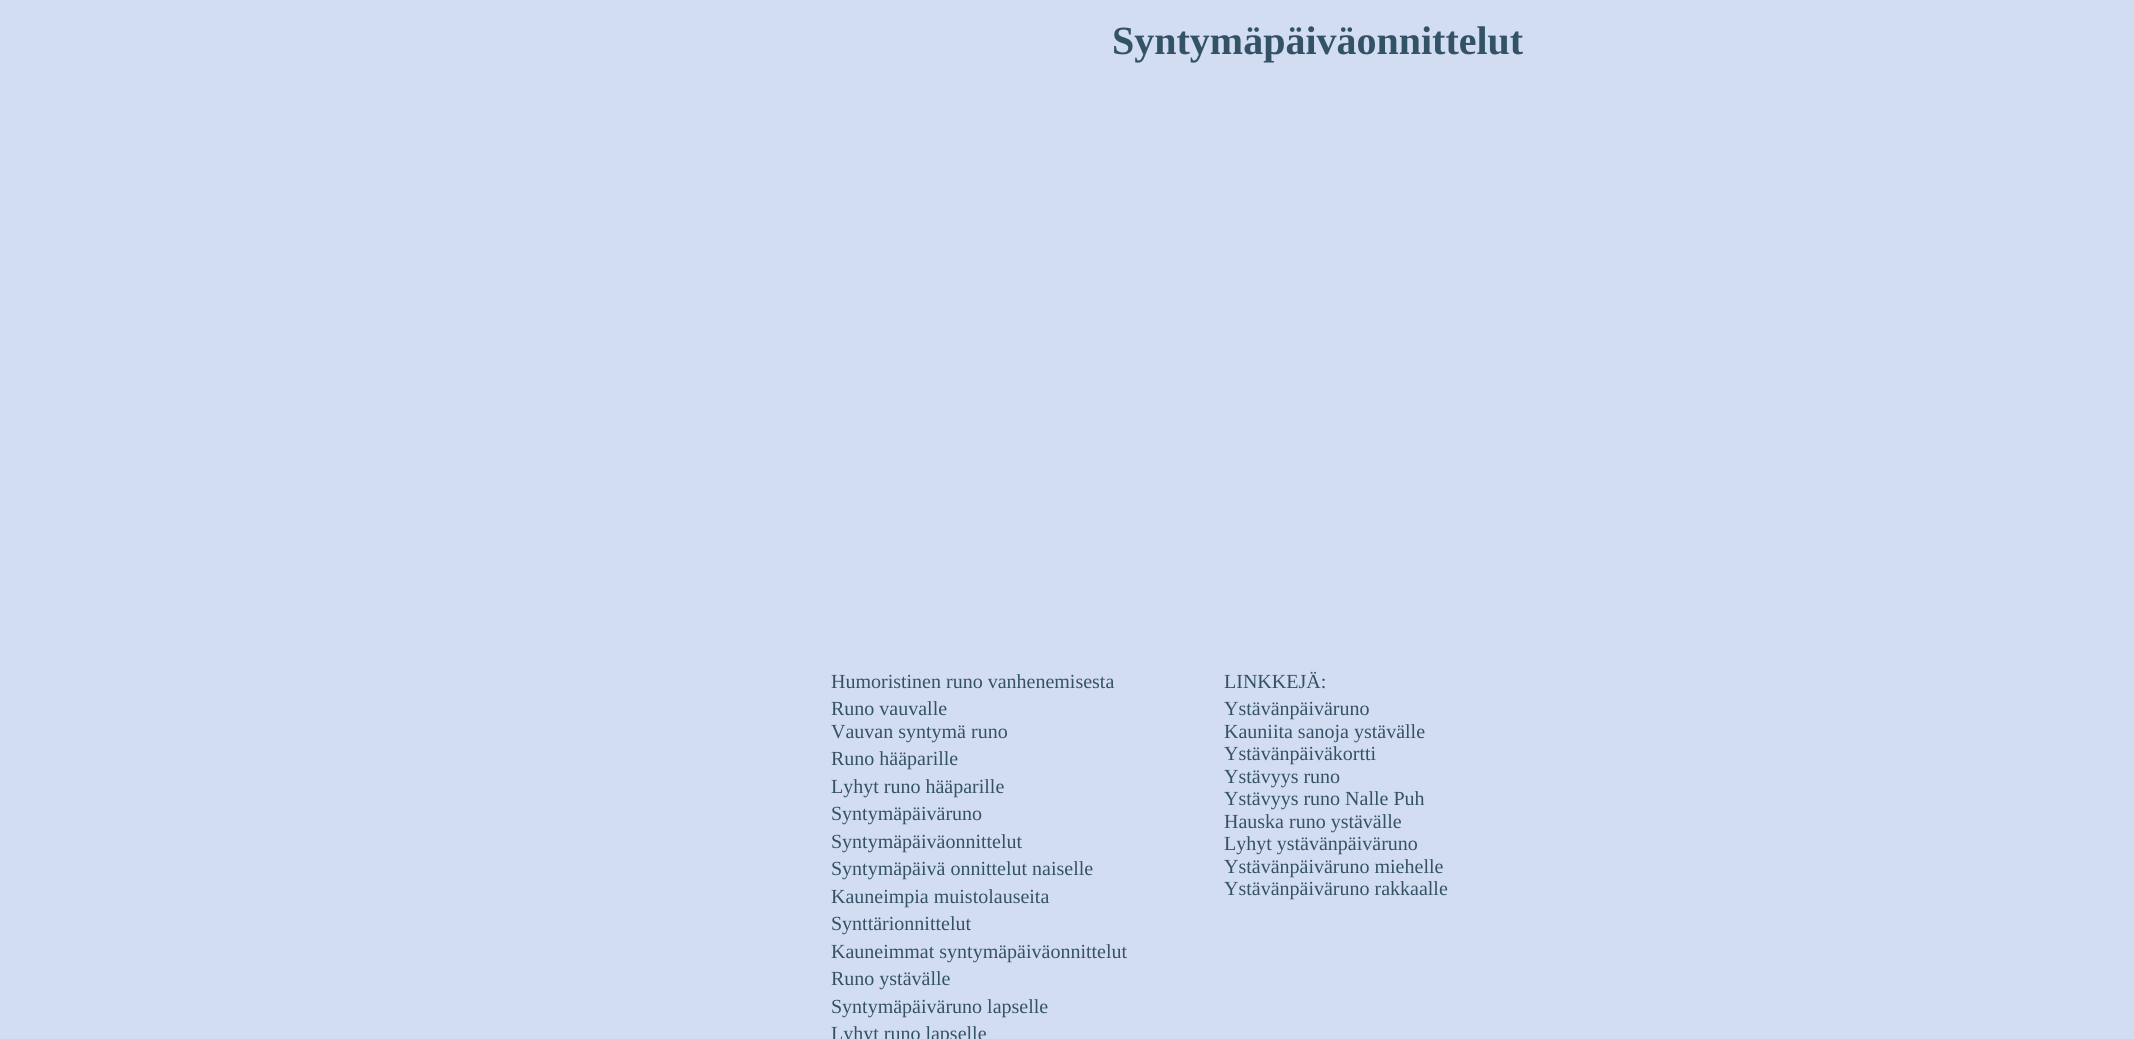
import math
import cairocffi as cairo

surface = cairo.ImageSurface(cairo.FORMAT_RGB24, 2134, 1039)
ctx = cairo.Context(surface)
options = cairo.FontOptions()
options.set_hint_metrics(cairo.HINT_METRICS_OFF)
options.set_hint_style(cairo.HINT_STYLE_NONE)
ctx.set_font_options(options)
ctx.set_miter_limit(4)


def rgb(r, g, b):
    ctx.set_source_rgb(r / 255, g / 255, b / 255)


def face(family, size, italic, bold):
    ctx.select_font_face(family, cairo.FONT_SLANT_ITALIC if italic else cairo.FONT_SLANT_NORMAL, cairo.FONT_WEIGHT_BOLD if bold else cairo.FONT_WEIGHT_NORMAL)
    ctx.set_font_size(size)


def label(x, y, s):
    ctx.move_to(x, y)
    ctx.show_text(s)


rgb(211, 221, 241)
ctx.paint()
face('Liberation Serif', 40, 0, 1)
rgb(51, 82, 102)
label(1112, 54, 'Syntymäpäiväonnittelut')
face('Liberation Serif', 20, 0, 0)
label(831, 688, 'Humoristinen runo vanhenemisesta')
label(831, 715, 'Runo vauvalle')
label(831, 738, 'Vauvan syntymä runo')
label(831, 765, 'Runo hääparille')
label(831, 793, 'Lyhyt runo hääparille')
label(831, 820, 'Syntymäpäiväruno')
label(831, 848, 'Syntymäpäiväonnittelut')
label(831, 875, 'Syntymäpäivä onnittelut naiselle')
label(831, 903, 'Kauneimpia muistolauseita')
label(831, 930, 'Synttärionnittelut')
label(831, 958, 'Kauneimmat syntymäpäiväonnittelut')
label(831, 985, 'Runo ystävälle')
label(831, 1013, 'Syntymäpäiväruno lapselle')
label(831, 1040, 'Lyhyt runo lapselle')
label(1224, 688, 'LINKKEJÄ:')
label(1224, 715, 'Ystävänpäiväruno')
label(1224, 738, 'Kauniita sanoja ystävälle')
label(1224, 760, 'Ystävänpäiväkortti')
label(1224, 783, 'Ystävyys runo')
label(1224, 805, 'Ystävyys runo Nalle Puh')
label(1224, 828, 'Hauska runo ystävälle')
label(1224, 850, 'Lyhyt ystävänpäiväruno')
label(1224, 873, 'Ystävänpäiväruno miehelle')
label(1224, 895, 'Ystävänpäiväruno rakkaalle')
surface.write_to_png('render.png')
